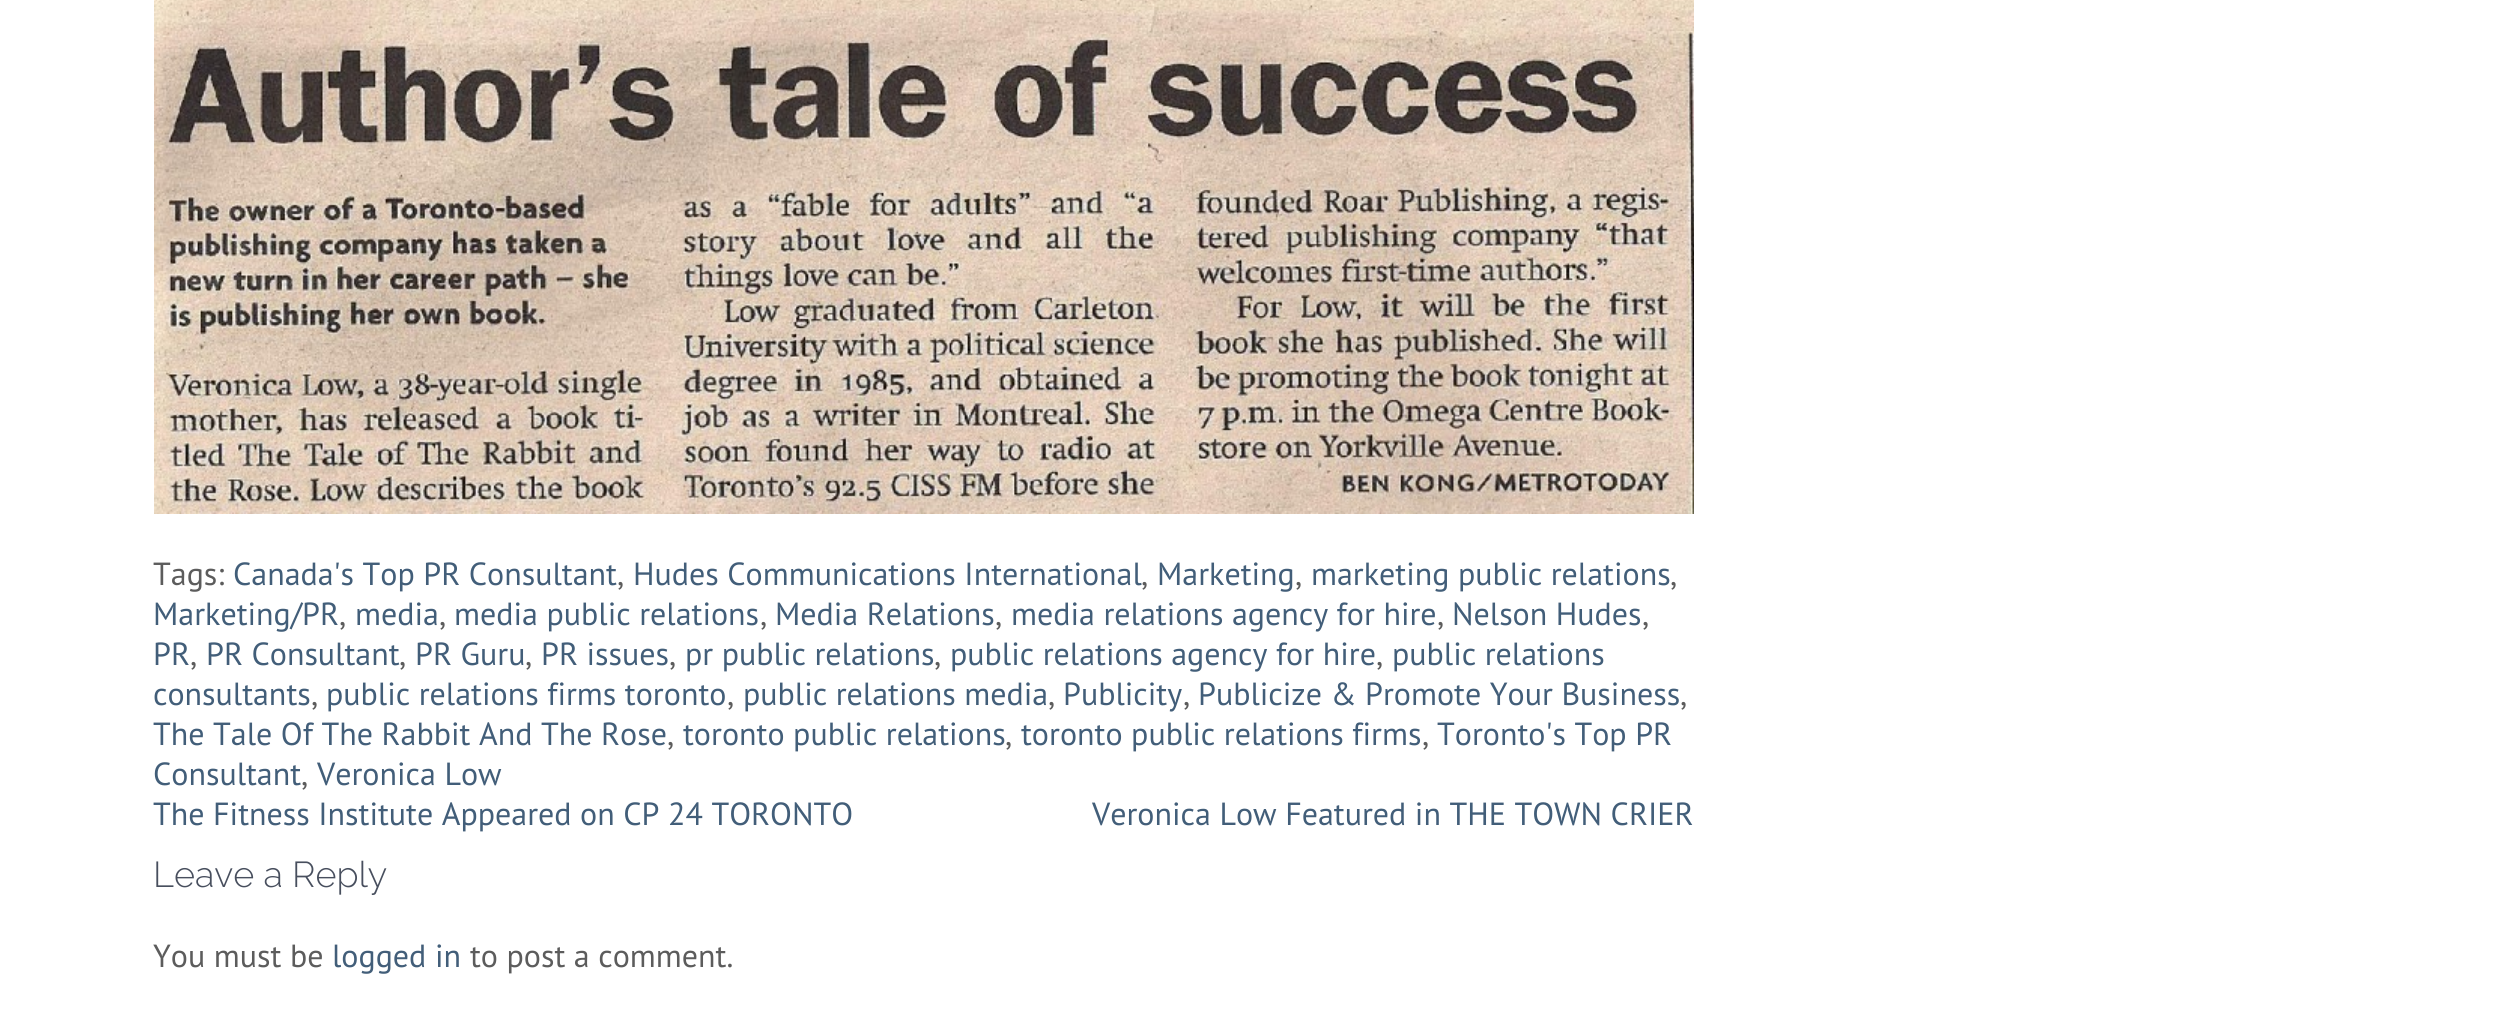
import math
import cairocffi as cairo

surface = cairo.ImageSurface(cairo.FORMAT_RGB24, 2506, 1034)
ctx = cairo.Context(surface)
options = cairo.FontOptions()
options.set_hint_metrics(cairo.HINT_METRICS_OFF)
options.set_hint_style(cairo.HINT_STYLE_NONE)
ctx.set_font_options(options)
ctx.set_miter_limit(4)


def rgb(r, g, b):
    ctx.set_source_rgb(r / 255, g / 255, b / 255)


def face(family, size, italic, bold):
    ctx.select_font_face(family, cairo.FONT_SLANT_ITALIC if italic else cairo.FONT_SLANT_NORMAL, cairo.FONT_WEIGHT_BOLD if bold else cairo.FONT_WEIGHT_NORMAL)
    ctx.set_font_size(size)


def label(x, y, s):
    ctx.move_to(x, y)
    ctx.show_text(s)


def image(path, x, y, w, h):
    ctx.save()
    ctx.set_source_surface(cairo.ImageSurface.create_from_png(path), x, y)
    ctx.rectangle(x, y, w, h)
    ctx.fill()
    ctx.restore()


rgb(255, 255, 255)
ctx.paint()
image('image0.png', 154, 0, 1540, 514)
face('PT Sans', 32, 0, 0)
rgb(92, 92, 92)
label(153, 585, 'Tags:')
rgb(66, 94, 121)
label(233, 585, 'Canada\'s Top PR Consultant')
rgb(92, 92, 92)
label(617, 585, ',')
rgb(66, 94, 121)
label(633, 585, 'Hudes Communications International')
rgb(92, 92, 92)
label(1141, 585, ',')
rgb(66, 94, 121)
label(1157, 585, 'Marketing')
rgb(92, 92, 92)
label(1295, 585, ',')
rgb(66, 94, 121)
label(1311, 585, 'marketing public relations')
rgb(92, 92, 92)
label(1670, 585, ',')
rgb(66, 94, 121)
label(153, 625, 'Marketing/PR')
rgb(92, 92, 92)
label(339, 625, ',')
rgb(66, 94, 121)
label(355, 625, 'media')
rgb(92, 92, 92)
label(439, 625, ',')
rgb(66, 94, 121)
label(454, 625, 'media public relations')
rgb(92, 92, 92)
label(760, 625, ',')
rgb(66, 94, 121)
label(775, 625, 'Media Relations')
rgb(92, 92, 92)
label(995, 625, ',')
rgb(66, 94, 121)
label(1011, 625, 'media relations agency for hire')
rgb(92, 92, 92)
label(1437, 625, ',')
rgb(66, 94, 121)
label(1452, 625, 'Nelson Hudes')
rgb(92, 92, 92)
label(1642, 625, ',')
rgb(66, 94, 121)
label(153, 665, 'PR')
rgb(92, 92, 92)
label(190, 665, ',')
rgb(66, 94, 121)
label(206, 665, 'PR Consultant')
rgb(92, 92, 92)
label(399, 665, ',')
rgb(66, 94, 121)
label(415, 665, 'PR Guru')
rgb(92, 92, 92)
label(525, 665, ',')
rgb(66, 94, 121)
label(541, 665, 'PR issues')
rgb(92, 92, 92)
label(669, 665, ',')
rgb(66, 94, 121)
label(685, 665, 'pr public relations')
rgb(92, 92, 92)
label(934, 665, ',')
rgb(66, 94, 121)
label(950, 665, 'public relations agency for hire')
rgb(92, 92, 92)
label(1376, 665, ',')
rgb(66, 94, 121)
label(1392, 665, 'public relations')
label(153, 705, 'consultants')
rgb(92, 92, 92)
label(311, 705, ',')
rgb(66, 94, 121)
label(326, 705, 'public relations firms toronto')
rgb(92, 92, 92)
label(727, 705, ',')
rgb(66, 94, 121)
label(743, 705, 'public relations media')
rgb(92, 92, 92)
label(1048, 705, ',')
rgb(66, 94, 121)
label(1063, 705, 'Publicity')
rgb(92, 92, 92)
label(1183, 705, ',')
rgb(66, 94, 121)
label(1198, 705, 'Publicize & Promote Your Business')
rgb(92, 92, 92)
label(1680, 705, ',')
rgb(66, 94, 121)
label(153, 745, 'The Tale Of The Rabbit And The Rose')
rgb(92, 92, 92)
label(667, 745, ',')
rgb(66, 94, 121)
label(683, 745, 'toronto public relations')
rgb(92, 92, 92)
label(1005, 745, ',')
rgb(66, 94, 121)
label(1021, 745, 'toronto public relations firms')
rgb(92, 92, 92)
label(1422, 745, ',')
rgb(66, 94, 121)
label(1437, 745, 'Toronto\'s Top PR')
label(153, 785, 'Consultant')
rgb(92, 92, 92)
label(301, 785, ',')
rgb(66, 94, 121)
label(317, 785, 'Veronica Low')
label(153, 825, 'The Fitness Institute Appeared on CP 24 TORONTO')
label(1092, 825, 'Veronica Low Featured in THE TOWN CRIER')
face('Raleway Light', 36, 0, 0)
rgb(72, 79, 94)
label(153, 887, 'Leave a Reply')
face('PT Sans', 32, 0, 0)
rgb(92, 92, 92)
label(153, 967, 'You must be')
rgb(66, 94, 121)
label(332, 967, 'logged in')
rgb(92, 92, 92)
label(470, 967, 'to post a comment.')
surface.write_to_png('render.png')
